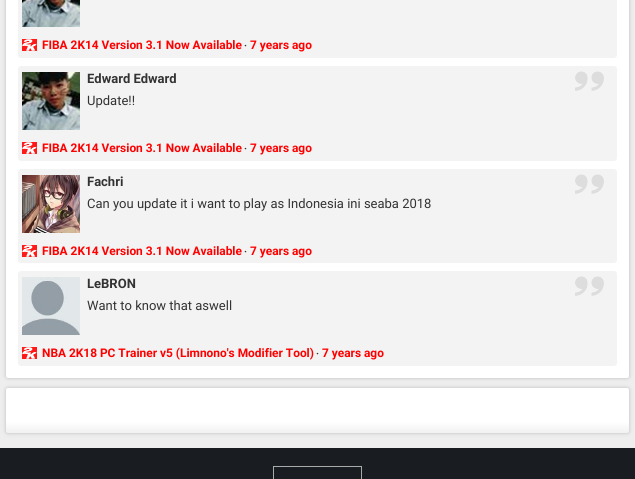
import math
import cairocffi as cairo

surface = cairo.ImageSurface(cairo.FORMAT_RGB24, 635, 479)
ctx = cairo.Context(surface)
options = cairo.FontOptions()
options.set_hint_metrics(cairo.HINT_METRICS_OFF)
options.set_hint_style(cairo.HINT_STYLE_NONE)
ctx.set_font_options(options)
ctx.set_miter_limit(4)


def rgb(r, g, b):
    ctx.set_source_rgb(r / 255, g / 255, b / 255)


def face(family, size, italic, bold):
    ctx.select_font_face(family, cairo.FONT_SLANT_ITALIC if italic else cairo.FONT_SLANT_NORMAL, cairo.FONT_WEIGHT_BOLD if bold else cairo.FONT_WEIGHT_NORMAL)
    ctx.set_font_size(size)


def label(x, y, s):
    ctx.move_to(x, y)
    ctx.show_text(s)


def rect(x, y, w, h):
    ctx.rectangle(x, y, w, h)
    ctx.fill()


def rrect(x, y, w, h, r):
    ctx.new_sub_path()
    for i, (u, v) in enumerate([(x + w - r, y + h - r), (x + r, y + h - r), (x + r, y + r), (x + w - r, y + r)]):
        ctx.arc(u, v, r, i * math.pi / 2, (i + 1) * math.pi / 2)
    ctx.close_path()


def soft_shadow(x, y, w, h, r, blur, alpha):
    ctx.push_group_with_content(cairo.CONTENT_ALPHA)
    ctx.set_operator(cairo.OPERATOR_SOURCE)
    for i in range(15, -16, -2):
        e = blur * i / 6
        if min(w, h) + 2 * e > 0:
            ctx.set_source_rgba(0, 0, 0, alpha * math.erfc((i - 1) / 8.5) / 2)
            rrect(x - e, y - e, w + 2 * e, h + 2 * e, max(0, min(r + e + blur * .6, min(w, h) / 2 + e)))
            ctx.fill()
    ctx.mask(ctx.pop_group())


def image(path, x, y, w, h):
    ctx.save()
    ctx.set_source_surface(cairo.ImageSurface.create_from_png(path), x, y)
    ctx.rectangle(x, y, w, h)
    ctx.fill()
    ctx.restore()


rgb(238, 238, 238)
ctx.paint()
rgb(187, 187, 187)
soft_shadow(6, -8, 623, 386, 2, 2, 1)
rgb(255, 255, 255)
rrect(6, -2, 623, 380, 2)
ctx.fill()
rgb(243, 243, 243)
rrect(18, -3, 599, 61, 3)
ctx.fill()
image('image0.png', 22, 0, 58, 27)
image('image1.png', 22, 39, 15, 12)
face('Roboto', 11.9, 0, 1)
rgb(255, 0, 0)
label(42, 49, 'FIBA 2K14 Version 3.1 Now Available')
face('Roboto', 10, 0, 1)
rgb(51, 51, 51)
label(244, 49, '·')
face('Roboto', 11.9, 0, 1)
rgb(255, 0, 0)
label(250, 49, '7 years ago')
rgb(243, 243, 243)
rrect(18, 66, 599, 95, 3)
ctx.fill()
image('image2.png', 575, 71, 29, 20)
image('image3.png', 22, 72, 58, 58)
face('Roboto', 13, 0, 1)
rgb(51, 51, 51)
label(87, 83, 'Edward Edward')
face('Roboto', 13, 0, 0)
label(87, 105, 'Update!!')
image('image1.png', 22, 142, 15, 12)
face('Roboto', 11.9, 0, 1)
rgb(255, 0, 0)
label(42, 152, 'FIBA 2K14 Version 3.1 Now Available')
face('Roboto', 10, 0, 1)
rgb(51, 51, 51)
label(244, 152, '·')
face('Roboto', 11.9, 0, 1)
rgb(255, 0, 0)
label(250, 152, '7 years ago')
rgb(243, 243, 243)
rrect(18, 169, 599, 94, 3)
ctx.fill()
image('image2.png', 575, 174, 29, 20)
image('image4.png', 22, 175, 58, 58)
face('Roboto', 13, 0, 1)
rgb(51, 51, 51)
label(87, 186, 'Fachri')
face('Roboto', 13, 0, 0)
label(87, 208, 'Can you update it i want to play as Indonesia ini seaba 2018')
image('image1.png', 22, 245, 15, 12)
face('Roboto', 11.9, 0, 1)
rgb(255, 0, 0)
label(42, 255, 'FIBA 2K14 Version 3.1 Now Available')
face('Roboto', 10, 0, 1)
rgb(51, 51, 51)
label(244, 255, '·')
face('Roboto', 11.9, 0, 1)
rgb(255, 0, 0)
label(250, 255, '7 years ago')
rgb(243, 243, 243)
rrect(18, 271, 599, 95, 3)
ctx.fill()
image('image2.png', 575, 276, 29, 20)
image('image5.png', 22, 277, 58, 58)
face('Roboto', 13, 0, 1)
rgb(51, 51, 51)
label(87, 288, 'LeBRON')
face('Roboto', 13, 0, 0)
label(87, 310, 'Want to know that aswell')
image('image1.png', 22, 347, 15, 12)
face('Roboto', 11.9, 0, 1)
rgb(255, 0, 0)
label(42, 357, 'NBA 2K18 PC Trainer v5 (Limnono\'s Modifier Tool)')
face('Roboto', 10, 0, 1)
rgb(51, 51, 51)
label(316, 357, '·')
face('Roboto', 11.9, 0, 1)
rgb(255, 0, 0)
label(322, 357, '7 years ago')
rgb(187, 187, 187)
soft_shadow(6, 388, 623, 45, 2, 2, 1)
gradient = cairo.LinearGradient(318, 433, 318, 388)
gradient.add_color_stop_rgba(0, 0.945, 0.945, 0.945, 1)
gradient.add_color_stop_rgba(0.25, 1, 1, 1, 1)
ctx.set_source(gradient)
rrect(6, 388, 623, 45, 2)
ctx.fill()
rgb(25, 28, 33)
rect(0, 448, 635, 31)
ctx.rectangle(273.5, 466.5, 88, 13)
rgb(170, 170, 170)
ctx.set_line_width(1)
ctx.stroke()
surface.write_to_png('render.png')
